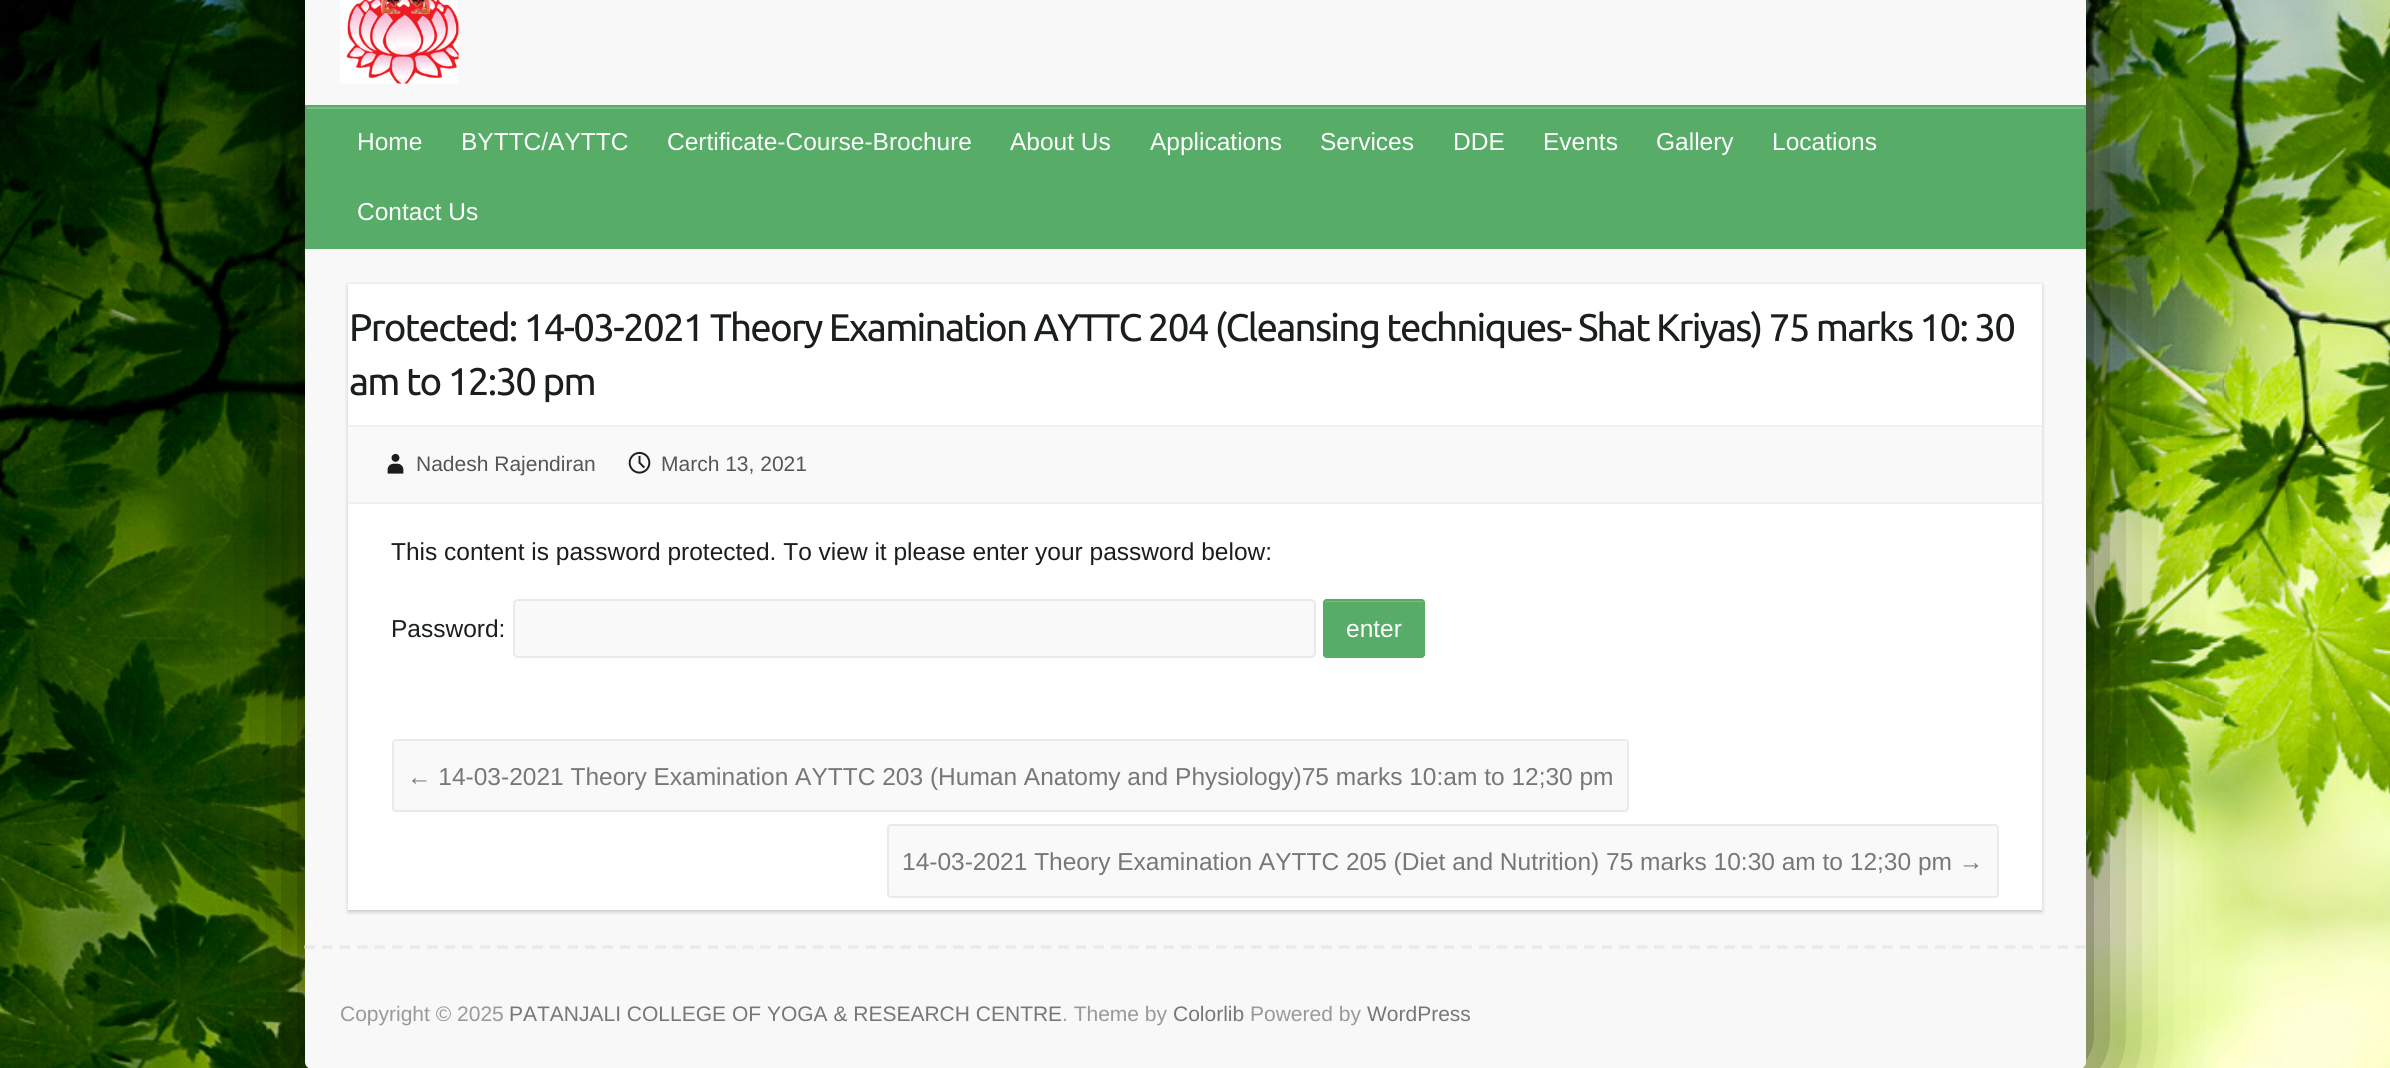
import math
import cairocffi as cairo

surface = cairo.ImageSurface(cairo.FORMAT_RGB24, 2390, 1068)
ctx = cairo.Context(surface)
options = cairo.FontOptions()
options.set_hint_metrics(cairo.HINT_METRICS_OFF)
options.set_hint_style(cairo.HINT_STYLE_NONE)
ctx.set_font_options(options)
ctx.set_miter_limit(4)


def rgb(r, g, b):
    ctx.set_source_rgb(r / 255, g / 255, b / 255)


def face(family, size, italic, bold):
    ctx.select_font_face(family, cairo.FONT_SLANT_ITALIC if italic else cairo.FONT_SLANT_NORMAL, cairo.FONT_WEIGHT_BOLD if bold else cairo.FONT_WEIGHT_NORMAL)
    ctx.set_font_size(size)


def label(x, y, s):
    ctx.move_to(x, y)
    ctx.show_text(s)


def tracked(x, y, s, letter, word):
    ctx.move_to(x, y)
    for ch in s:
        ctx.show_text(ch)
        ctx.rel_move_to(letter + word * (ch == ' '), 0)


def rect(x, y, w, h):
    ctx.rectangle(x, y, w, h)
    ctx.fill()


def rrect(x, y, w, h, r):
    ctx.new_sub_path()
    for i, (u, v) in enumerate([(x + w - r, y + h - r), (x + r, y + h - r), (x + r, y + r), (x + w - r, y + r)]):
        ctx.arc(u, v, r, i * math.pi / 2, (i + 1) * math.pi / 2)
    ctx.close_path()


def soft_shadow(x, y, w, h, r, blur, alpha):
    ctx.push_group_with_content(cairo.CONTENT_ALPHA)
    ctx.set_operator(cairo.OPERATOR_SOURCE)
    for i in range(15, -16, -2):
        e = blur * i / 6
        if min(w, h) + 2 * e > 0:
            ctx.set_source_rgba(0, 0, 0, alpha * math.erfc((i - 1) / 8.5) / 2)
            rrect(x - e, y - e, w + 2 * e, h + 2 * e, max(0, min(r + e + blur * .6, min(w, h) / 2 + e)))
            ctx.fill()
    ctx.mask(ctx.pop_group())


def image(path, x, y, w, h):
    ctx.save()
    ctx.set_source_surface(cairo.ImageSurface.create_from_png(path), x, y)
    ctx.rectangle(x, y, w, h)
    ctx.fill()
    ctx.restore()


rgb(255, 255, 255)
ctx.paint()
image('image0.png', 0, 0, 2390, 1068)
rgb(0, 0, 0)
soft_shadow(305, -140, 1781, 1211, 7, 48, 0.8)
rgb(248, 248, 248)
rrect(305, -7, 1781, 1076, 7)
ctx.fill()
image('image1.png', 340, 0, 119, 84)
rgb(87, 173, 104)
rect(307, 109, 1777, 138)
rgb(121, 189, 134)
rect(306, 107, 1778, 2)
ctx.rectangle(306, 106, 1779, 142)
rgb(87, 173, 104)
ctx.stroke()
face('Liberation Sans', 24.5, 0, 0)
rgb(255, 255, 255)
label(357, 150, 'Home')
label(461, 150, 'BYTTC/AYTTC')
label(667, 150, 'Certificate-Course-Brochure')
label(1010, 150, 'About Us')
label(1150, 150, 'Applications')
label(1320, 150, 'Services')
label(1453, 150, 'DDE')
label(1543, 150, 'Events')
label(1656, 150, 'Gallery')
label(1772, 150, 'Locations')
label(357, 220, 'Contact Us')
rgb(0, 0, 0)
soft_shadow(348, 285, 1694, 627, 0, 2, 0.2)
rgb(255, 255, 255)
rect(348, 284, 1694, 626)
face('Ubuntu', 38.5, 0, 0)
rgb(27, 30, 31)
tracked(349, 341, 'Protected: 14-03-2021 Theory Examination AYTTC 204 (Cleansing techniques- Shat Kriyas) 75 marks 10: 30', -1.75, 0)
tracked(349, 395, 'am to 12:30 pm', -1.75, 0)
rgb(249, 249, 249)
rect(348, 427, 1694, 75)
rgb(240, 240, 240)
rect(348, 425, 1694, 2)
rect(348, 502, 1694, 2)
image('image2.png', 387, 453, 17, 21)
face('Liberation Sans', 21, 0, 0)
rgb(85, 85, 85)
label(416, 471, 'Nadesh Rajendiran')
image('image3.png', 628, 451, 23, 23)
label(661, 471, 'March 13, 2021')
face('Liberation Sans', 24.5, 0, 0)
rgb(27, 30, 31)
label(391, 560, 'This content is password protected. To view it please enter your password below:')
label(391, 637, 'Password:')
rgb(249, 249, 249)
rrect(514, 600, 801, 57, 4)
ctx.fill_preserve()
rgb(234, 234, 234)
ctx.stroke()
rgb(87, 173, 104)
rrect(1323, 599, 102, 59, 4)
ctx.fill()
rgb(121, 189, 134)
ctx.new_path()
ctx.move_to(1326, 602)
ctx.line_to(1421, 602)
ctx.curve_to(1422, 602, 1423, 603, 1423, 604)
ctx.line_to(1423, 602)
ctx.curve_to(1423, 601, 1422, 600, 1421, 600)
ctx.line_to(1327, 600)
ctx.curve_to(1326, 600, 1325, 601, 1325, 602)
ctx.line_to(1325, 604)
ctx.close_path()
ctx.fill()
rrect(1324, 600, 100, 57, 3)
rgb(87, 173, 104)
ctx.stroke()
rgb(255, 255, 255)
label(1346, 637, 'enter')
rgb(249, 249, 249)
rrect(393, 740, 1235, 71, 3)
ctx.fill_preserve()
rgb(234, 234, 234)
ctx.stroke()
rgb(119, 119, 119)
label(407, 785, '← 14-03-2021 Theory Examination AYTTC 203 (Human Anatomy and Physiology)75 marks 10:am to 12;30 pm')
rgb(249, 249, 249)
rrect(888, 825, 1110, 72, 3)
ctx.fill_preserve()
rgb(234, 234, 234)
ctx.stroke()
rgb(119, 119, 119)
label(902, 870, '14-03-2021 Theory Examination AYTTC 205 (Diet and Nutrition) 75 marks 10:30 am to 12;30 pm →')
ctx.new_path()
ctx.move_to(304.5, 947)
ctx.line_to(2086, 947)
rgb(234, 234, 234)
ctx.set_line_width(3.5)
ctx.set_dash([10.5, 7.03])
ctx.stroke()
face('Liberation Sans', 21, 0, 0)
rgb(153, 153, 153)
label(340, 1021, 'Copyright © 2025')
rgb(119, 119, 119)
label(509, 1021, 'PATANJALI COLLEGE OF YOGA & RESEARCH CENTRE')
rgb(153, 153, 153)
label(1062, 1021, '. Theme by')
rgb(119, 119, 119)
label(1173, 1021, 'Colorlib')
rgb(153, 153, 153)
label(1250, 1021, 'Powered by')
rgb(119, 119, 119)
label(1367, 1021, 'WordPress')
surface.write_to_png('render.png')
